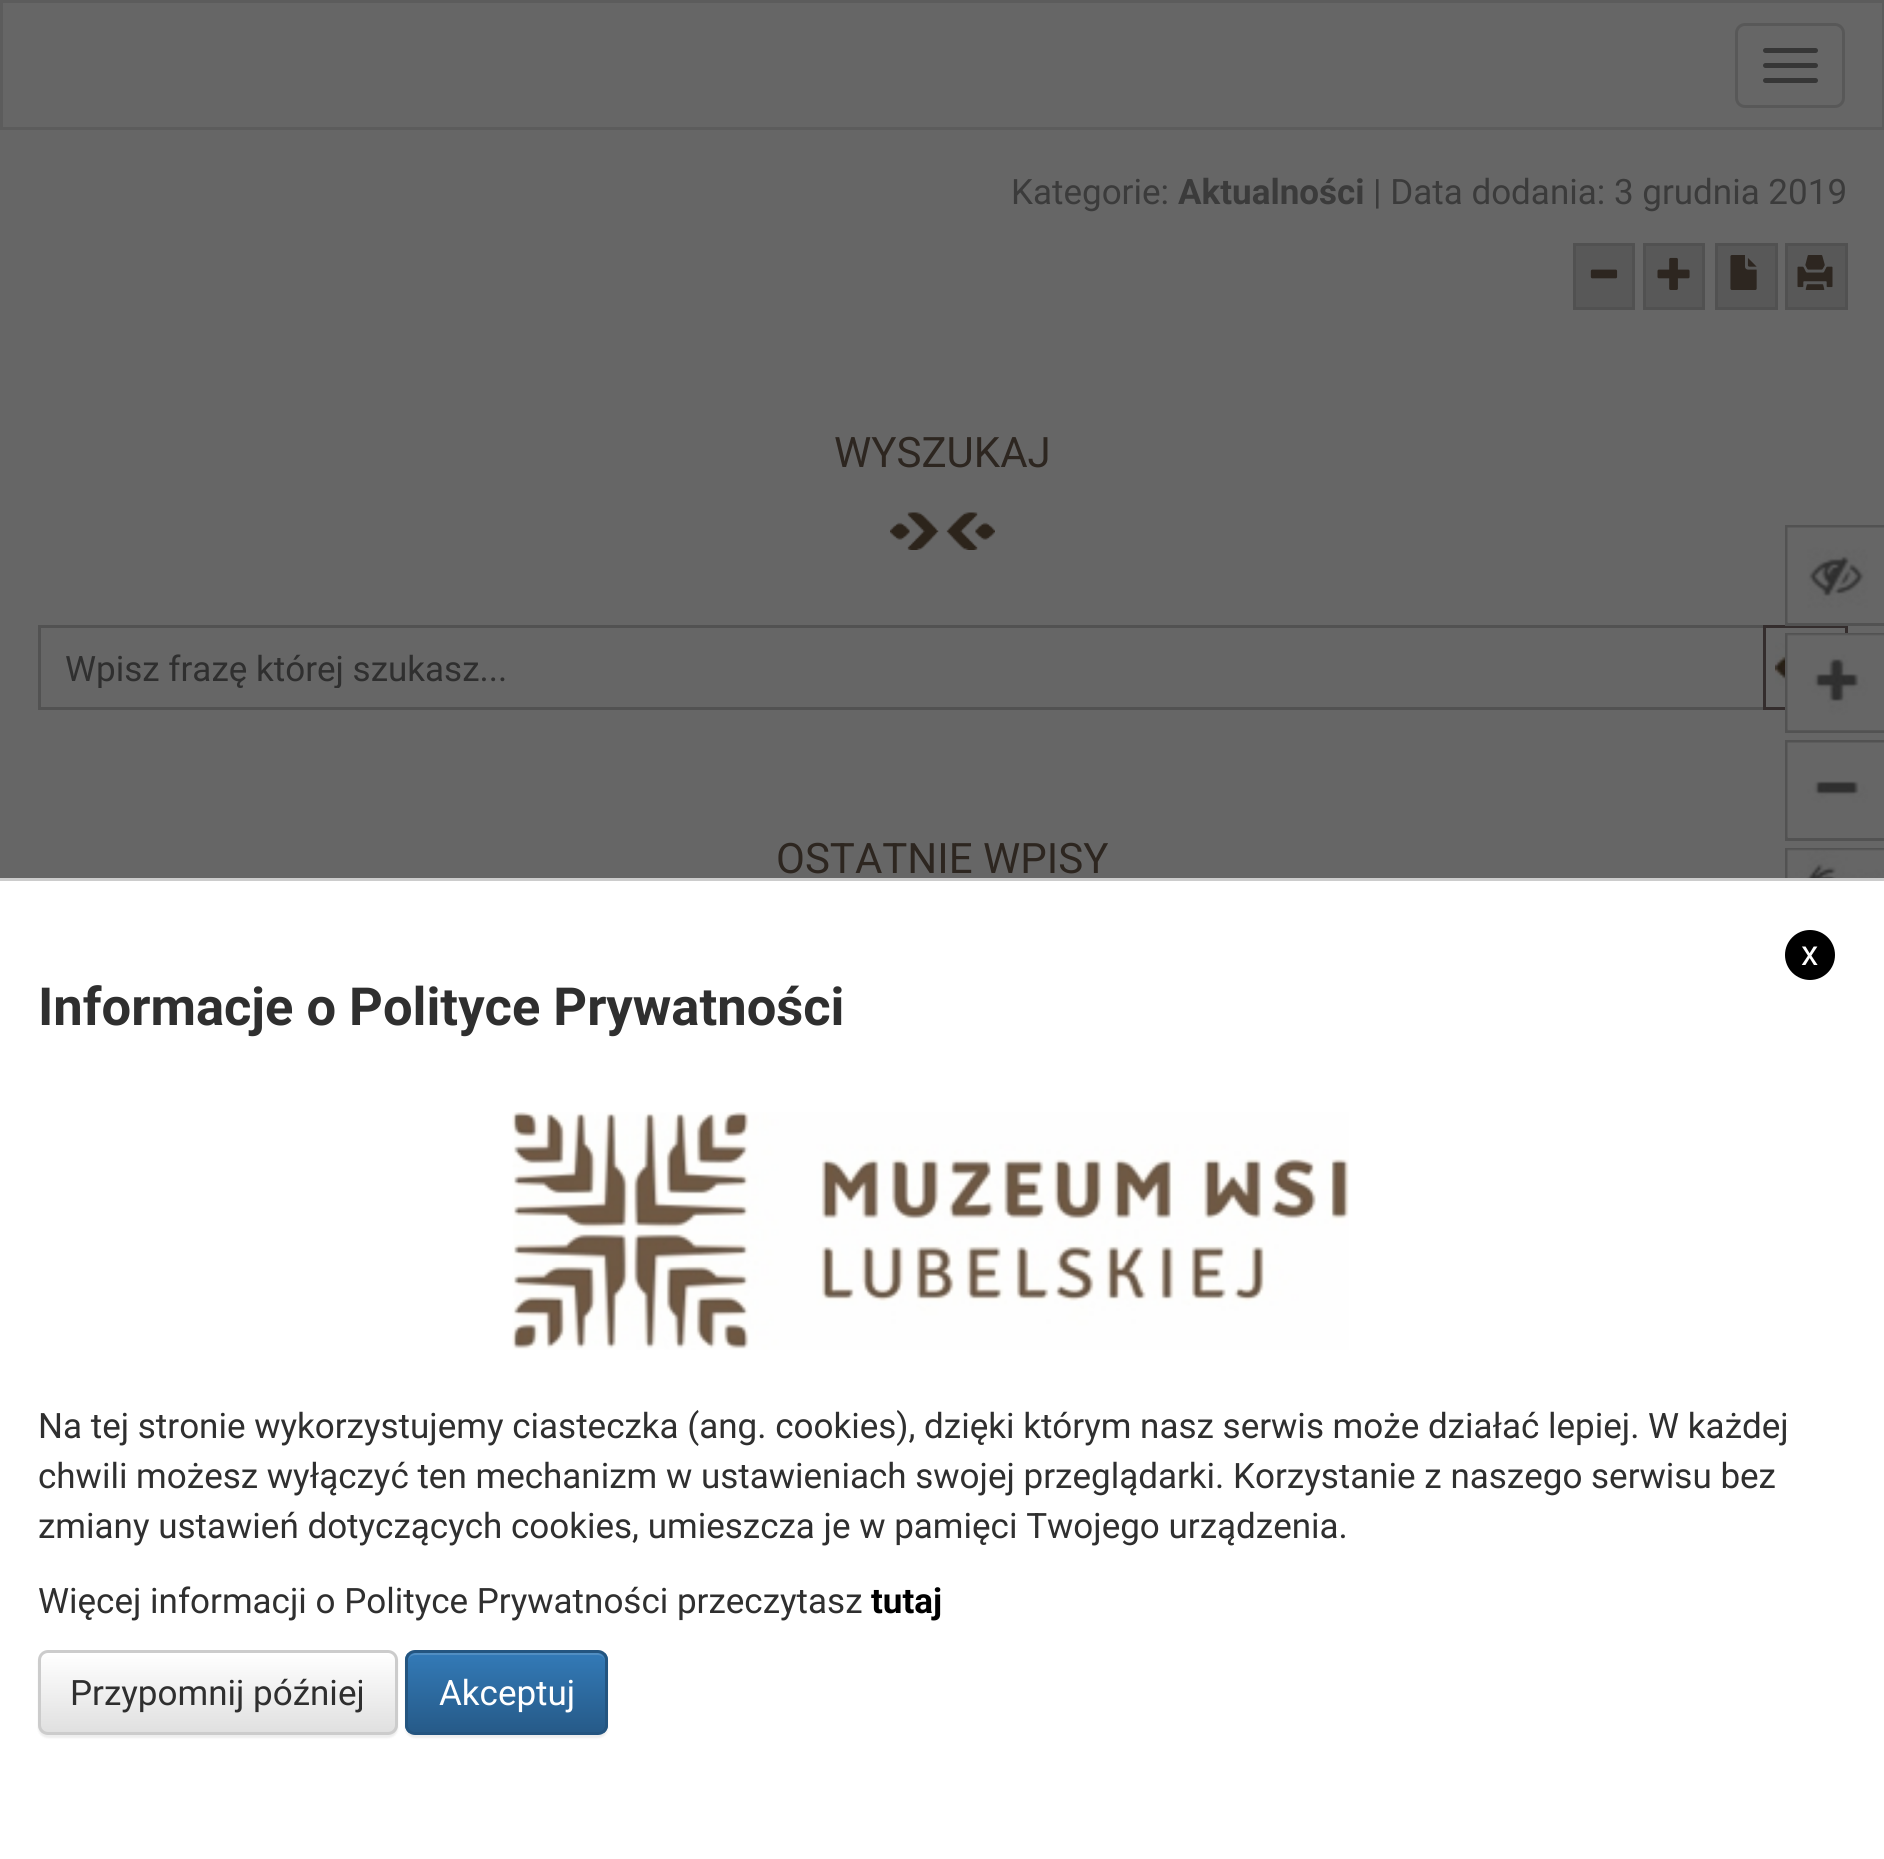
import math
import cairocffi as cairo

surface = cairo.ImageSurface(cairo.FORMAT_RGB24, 1884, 1859)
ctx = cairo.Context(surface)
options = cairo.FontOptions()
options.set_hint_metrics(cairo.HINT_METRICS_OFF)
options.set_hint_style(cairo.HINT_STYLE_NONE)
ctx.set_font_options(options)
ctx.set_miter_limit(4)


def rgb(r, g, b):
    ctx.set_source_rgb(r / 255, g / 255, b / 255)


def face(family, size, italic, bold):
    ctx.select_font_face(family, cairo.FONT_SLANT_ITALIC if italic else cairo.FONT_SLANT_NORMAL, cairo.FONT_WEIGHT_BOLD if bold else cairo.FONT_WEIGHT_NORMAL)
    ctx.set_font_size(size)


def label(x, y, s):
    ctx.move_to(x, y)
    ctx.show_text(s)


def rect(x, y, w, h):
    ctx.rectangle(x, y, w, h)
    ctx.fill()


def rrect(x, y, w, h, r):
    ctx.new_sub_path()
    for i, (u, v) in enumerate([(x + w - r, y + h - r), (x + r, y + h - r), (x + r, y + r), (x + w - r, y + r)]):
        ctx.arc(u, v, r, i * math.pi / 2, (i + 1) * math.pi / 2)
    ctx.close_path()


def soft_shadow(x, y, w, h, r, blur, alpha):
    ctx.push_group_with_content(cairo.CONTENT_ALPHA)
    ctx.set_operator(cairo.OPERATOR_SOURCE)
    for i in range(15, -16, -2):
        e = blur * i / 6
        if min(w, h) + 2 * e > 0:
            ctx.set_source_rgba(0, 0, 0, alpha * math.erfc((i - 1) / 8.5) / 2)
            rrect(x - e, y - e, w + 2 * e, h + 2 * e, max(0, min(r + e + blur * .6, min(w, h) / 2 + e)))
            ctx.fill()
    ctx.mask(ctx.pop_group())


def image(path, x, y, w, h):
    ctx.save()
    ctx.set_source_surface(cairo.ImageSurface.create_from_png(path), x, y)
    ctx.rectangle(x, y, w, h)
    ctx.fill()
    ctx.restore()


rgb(102, 102, 102)
ctx.paint()
ctx.rectangle(1.5, 1.5, 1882, 127)
rgb(92, 92, 92)
ctx.set_line_width(3)
ctx.stroke()
rrect(1736.5, 24.5, 107, 82, 8.5)
rgb(88, 88, 88)
ctx.stroke()
rgb(54, 54, 54)
rrect(1763, 48, 55, 5, 2.5)
ctx.fill()
rrect(1763, 63, 55, 5, 2.5)
ctx.fill()
rrect(1763, 78, 55, 5, 2.5)
ctx.fill()
face('Roboto', 35, 0, 0)
rgb(59, 59, 59)
label(1011, 204, 'Kategorie:')
face('Roboto', 35, 0, 1)
label(1178, 204, 'Aktualności')
face('Roboto', 35, 0, 0)
label(1373, 204, '| Data dodania: 3 grudnia 2019')
rgb(88, 88, 88)
ctx.rectangle(1574.5, 244.5, 59, 64)
ctx.fill_preserve()
rgb(81, 81, 81)
ctx.stroke()
image('image0.png', 1590, 269, 28, 10)
rgb(88, 88, 88)
ctx.rectangle(1644.5, 244.5, 59, 64)
ctx.fill_preserve()
rgb(81, 81, 81)
ctx.stroke()
image('image1.png', 1657, 257, 33, 33)
rgb(88, 88, 88)
ctx.rectangle(1716.5, 244.5, 60, 64)
ctx.fill_preserve()
rgb(81, 81, 81)
ctx.stroke()
image('image2.png', 1730, 255, 27, 35)
rgb(88, 88, 88)
ctx.rectangle(1786.5, 244.5, 60, 64)
ctx.fill_preserve()
rgb(81, 81, 81)
ctx.stroke()
image('image3.png', 1797, 255, 36, 35)
face('Roboto', 42, 0, 0)
rgb(45, 38, 32)
label(834, 467, 'WYSZUKAJ')
image('image4.png', 890, 512, 105, 38)
ctx.rectangle(39.5, 626.5, 1807, 82)
rgb(82, 82, 82)
ctx.stroke()
ctx.save()
ctx.rectangle(65, 648, 1745, 40)
ctx.clip()
face('Roboto', 35, 0, 0)
rgb(47, 47, 47)
label(65, 681, 'Wpisz frazę której szukasz...')
ctx.restore()
image('image5.png', 1775, 642, 10, 51)
ctx.rectangle(1764.5, 626.5, 82, 82)
rgb(52, 45, 45)
ctx.stroke()
rgb(45, 38, 32)
label(776, 873, 'OSTATNIE WPISY')
rgb(82, 82, 82)
rect(1785, 525, 99, 3)
rect(1785, 623, 99, 3)
rect(1785, 525, 3, 100)
image('image6.png', 1787, 527, 97, 96)
rect(1785, 633, 99, 3)
rect(1785, 730, 99, 3)
rect(1785, 633, 3, 100)
image('image7.png', 1787, 634, 97, 97)
rect(1785, 740, 99, 3)
rect(1785, 838, 99, 3)
rect(1785, 740, 3, 100)
image('image8.png', 1787, 742, 97, 96)
rect(1785, 848, 99, 3)
rect(1785, 848, 3, 30)
image('image9.png', 1787, 849, 97, 29)
rgb(255, 255, 255)
rect(0, 881, 1884, 978)
rgb(204, 204, 204)
rect(0, 878, 1884, 3)
rgb(0, 0, 0)
ctx.arc(1810, 955, 25, 0, 2 * math.pi)
ctx.fill()
face('Roboto', 35, 0, 0)
rgb(255, 255, 255)
label(1801, 965, 'x')
face('Roboto', 52.5, 0, 1)
rgb(47, 47, 47)
label(38, 1025, 'Informacje o Polityce Prywatności')
image('image10.png', 512, 1112, 837, 238)
face('Roboto', 35, 0, 0)
label(38, 1438, 'Na tej stronie wykorzystujemy ciasteczka (ang. cookies), dzięki którym nasz serwis może działać lepiej. W każdej')
label(38, 1488, 'chwili możesz wyłączyć ten mechanizm w ustawieniach swojej przeglądarki. Korzystanie z naszego serwisu bez')
label(38, 1538, 'zmiany ustawień dotyczących cookies, umieszcza je w pamięci Twojego urządzenia.')
label(38, 1613, 'Więcej informacji o Polityce Prywatności przeczytasz')
face('Roboto', 35, 0, 1)
rgb(0, 0, 0)
label(871, 1613, 'tutaj')
rgb(0, 0, 0)
soft_shadow(38, 1653, 360, 85, 10, 1, 0.07)
ctx.save()
rrect(38, 1650, 360, 85, 10)
ctx.clip()
gradient = cairo.LinearGradient(218, 1653, 218, 1733)
gradient.add_color_stop_rgba(0, 1, 1, 1, 1)
gradient.add_color_stop_rgba(1, 0.878, 0.878, 0.878, 1)
ctx.set_source(gradient)
rect(38, 1653, 360, 80)
ctx.restore()
rrect(39.5, 1651.5, 357, 82, 8.5)
rgb(204, 204, 204)
ctx.stroke()
face('Roboto', 35, 0, 0)
rgb(47, 47, 47)
label(70, 1705, 'Przypomnij później')
rgb(0, 0, 0)
soft_shadow(405, 1653, 203, 85, 10, 1, 0.07)
ctx.save()
rrect(405, 1650, 203, 85, 10)
ctx.clip()
gradient = cairo.LinearGradient(506, 1653, 506, 1733)
gradient.add_color_stop_rgba(0, 0.2, 0.478, 0.718, 1)
gradient.add_color_stop_rgba(1, 0.149, 0.353, 0.533, 1)
ctx.set_source(gradient)
rect(405, 1653, 203, 80)
ctx.restore()
ctx.set_source_rgba(1, 1, 1, 0.15)
ctx.new_path()
ctx.move_to(415, 1655)
ctx.line_to(598, 1655)
ctx.curve_to(602, 1655, 605, 1658, 605, 1662)
ctx.line_to(605, 1661)
ctx.curve_to(605, 1657, 601, 1653, 597, 1653)
ctx.line_to(416, 1653)
ctx.curve_to(412, 1653, 408, 1657, 408, 1661)
ctx.line_to(408, 1662)
ctx.curve_to(408, 1658, 411, 1655, 415, 1655)
ctx.close_path()
ctx.fill()
rrect(406.5, 1651.5, 200, 82, 8.5)
rgb(36, 85, 128)
ctx.stroke()
rgb(255, 255, 255)
label(439, 1705, 'Akceptuj')
surface.write_to_png('render.png')
